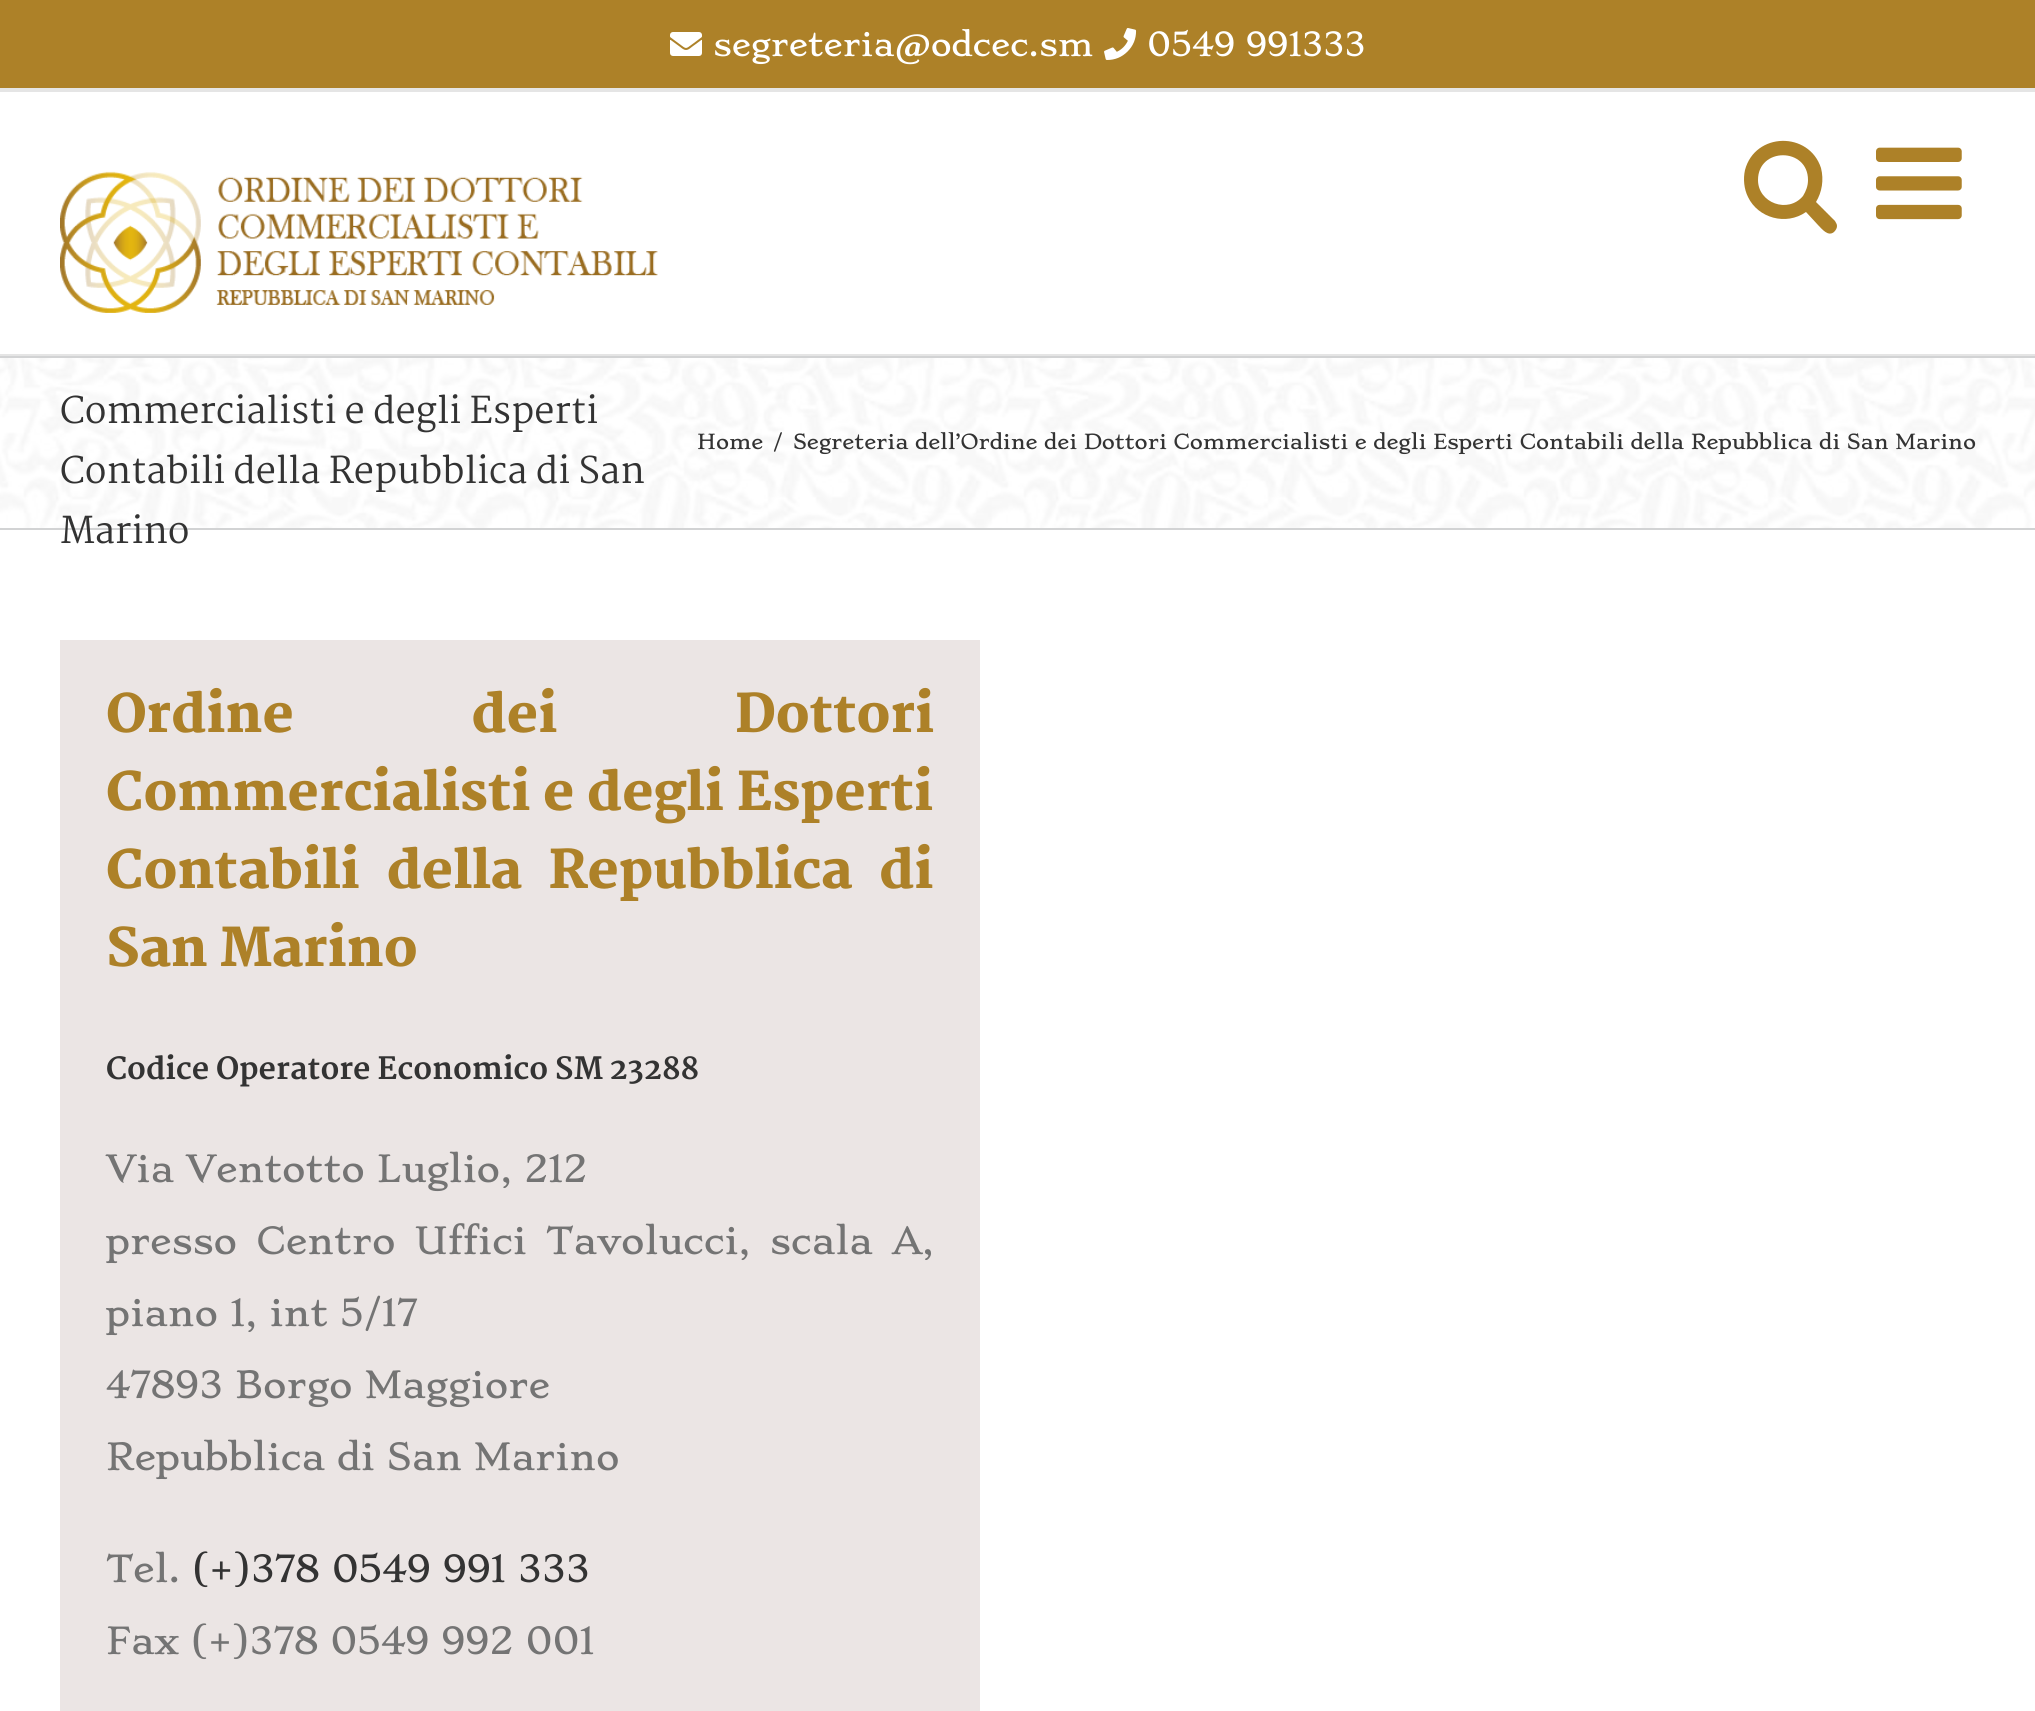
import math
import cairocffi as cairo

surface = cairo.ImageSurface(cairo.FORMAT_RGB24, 2035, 1711)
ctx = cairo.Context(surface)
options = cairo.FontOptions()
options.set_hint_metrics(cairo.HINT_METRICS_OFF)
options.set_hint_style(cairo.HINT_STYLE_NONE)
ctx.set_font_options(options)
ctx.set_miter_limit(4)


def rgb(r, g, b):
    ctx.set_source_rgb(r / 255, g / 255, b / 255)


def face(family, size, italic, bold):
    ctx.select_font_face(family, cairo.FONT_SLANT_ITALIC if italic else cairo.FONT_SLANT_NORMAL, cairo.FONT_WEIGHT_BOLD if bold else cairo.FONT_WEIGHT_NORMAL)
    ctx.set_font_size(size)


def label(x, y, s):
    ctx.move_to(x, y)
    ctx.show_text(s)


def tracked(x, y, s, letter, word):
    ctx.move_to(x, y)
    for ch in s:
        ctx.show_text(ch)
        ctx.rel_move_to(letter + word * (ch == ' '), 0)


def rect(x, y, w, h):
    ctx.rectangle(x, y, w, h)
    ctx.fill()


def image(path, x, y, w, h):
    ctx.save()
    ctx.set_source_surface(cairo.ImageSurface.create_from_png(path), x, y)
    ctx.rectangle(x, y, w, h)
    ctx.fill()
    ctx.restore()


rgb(255, 255, 255)
ctx.paint()
rgb(173, 129, 40)
rect(0, 0, 2035, 88)
rgb(229, 229, 229)
rect(0, 88, 2035, 4)
image('image0.png', 670, 32, 32, 24)
face('Stoke', 32, 0, 0)
rgb(255, 255, 255)
label(713, 56, 'segreteria@odcec.sm')
image('image1.png', 1104, 28, 33, 32)
label(1147, 56, '0549 991333')
rgb(229, 229, 229)
rect(0, 354, 2035, 2)
image('image2.png', 60, 171, 598, 142)
rgb(173, 129, 40)
ctx.new_path()
ctx.move_to(1808, 180)
ctx.curve_to(1808, 147, 1758, 147, 1758, 180)
ctx.curve_to(1758, 203, 1788, 214, 1803, 196)
ctx.curve_to(1806, 191, 1808, 186, 1808, 180)
ctx.close_path()
ctx.move_to(1837, 226)
ctx.curve_to(1837, 228, 1836, 230, 1834, 232)
ctx.curve_to(1828, 237, 1822, 229, 1818, 225)
ctx.line_to(1806, 212)
ctx.curve_to(1786, 226, 1758, 218, 1748, 197)
ctx.curve_to(1744, 189, 1743, 179, 1745, 170)
ctx.curve_to(1755, 132, 1809, 131, 1821, 168)
ctx.curve_to(1824, 180, 1822, 192, 1816, 202)
ctx.line_to(1835, 221)
ctx.curve_to(1836, 223, 1837, 224, 1837, 226)
ctx.close_path()
ctx.fill()
image('image3.png', 1876, 147, 86, 73)
image('image4.png', 0, 358, 2035, 170)
rgb(210, 211, 212)
rect(0, 356, 2035, 2)
rect(0, 528, 2035, 2)
face('Martel', 36, 0, 0)
rgb(51, 51, 51)
label(60, 423, 'Commercialisti e degli Esperti')
label(60, 483, 'Contabili della Repubblica di San')
label(60, 543, 'Marino')
face('Stoke', 20, 0, 0)
label(697, 449, 'Home')
label(773, 449, '/')
label(793, 449, 'Segreteria dell’Ordine dei Dottori Commercialisti e degli Esperti Contabili della Repubblica di San Marino')
rgb(235, 229, 228)
rect(60, 640, 920, 1071)
face('Martel Black', 52, 0, 0)
rgb(173, 129, 40)
tracked(106, 732, 'Ordine dei Dottori', 0, 166)
tracked(106, 810, 'Commercialisti e degli Esperti', 0, 1)
tracked(106, 888, 'Contabili della Repubblica di', 0, 15.5)
label(106, 966, 'San Marino')
face('Martel ExtraBold', 30, 0, 0)
rgb(51, 51, 51)
label(106, 1079, 'Codice Operatore Economico SM 23288')
face('Stoke', 36, 0, 0)
rgb(116, 116, 116)
label(106, 1182, 'Via Ventotto Luglio, 212')
tracked(106, 1254, 'presso Centro Uffici Tavolucci, scala A,', 0, 7.25)
label(106, 1326, 'piano 1, int 5/17')
label(106, 1398, '47893 Borgo Maggiore')
label(106, 1470, 'Repubblica di San Marino')
label(106, 1582, 'Tel.')
rgb(51, 51, 51)
label(192, 1582, '(+)378 0549 991 333')
rgb(116, 116, 116)
label(106, 1654, 'Fax (+)378 0549 992 001')
surface.write_to_png('render.png')
